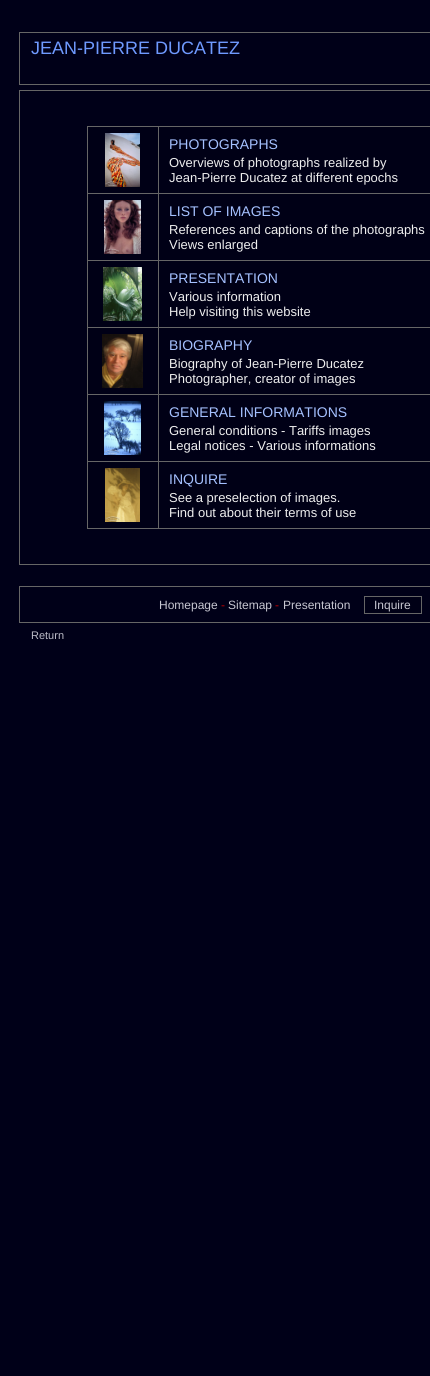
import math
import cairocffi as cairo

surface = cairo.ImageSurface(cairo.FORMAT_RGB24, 430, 1376)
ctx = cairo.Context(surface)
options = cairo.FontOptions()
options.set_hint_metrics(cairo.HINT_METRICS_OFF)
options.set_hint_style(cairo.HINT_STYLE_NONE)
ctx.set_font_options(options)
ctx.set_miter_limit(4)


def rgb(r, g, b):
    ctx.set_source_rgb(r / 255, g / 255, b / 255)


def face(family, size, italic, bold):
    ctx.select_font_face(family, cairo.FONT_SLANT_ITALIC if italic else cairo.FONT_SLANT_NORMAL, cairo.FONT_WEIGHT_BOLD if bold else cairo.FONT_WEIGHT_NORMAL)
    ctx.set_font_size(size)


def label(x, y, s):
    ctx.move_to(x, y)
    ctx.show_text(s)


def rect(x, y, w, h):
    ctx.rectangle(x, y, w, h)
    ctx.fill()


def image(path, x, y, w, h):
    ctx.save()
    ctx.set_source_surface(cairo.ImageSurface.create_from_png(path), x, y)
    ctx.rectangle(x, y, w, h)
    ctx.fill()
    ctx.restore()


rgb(0, 0, 24)
ctx.paint()
ctx.rectangle(19.5, 32.5, 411, 52)
rgb(102, 102, 102)
ctx.set_line_width(1)
ctx.stroke()
face('Liberation Sans', 18, 0, 0)
rgb(111, 154, 255)
label(31, 54, 'JEAN-PIERRE DUCATEZ')
ctx.rectangle(19.5, 90.5, 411, 474)
rgb(102, 102, 102)
ctx.stroke()
rect(87, 126, 343, 403)
rgb(0, 0, 22)
rect(88, 127, 70, 66)
image('image0.png', 105, 133, 35, 54)
rect(159, 127, 271, 66)
face('Liberation Sans', 14, 0, 0)
rgb(165, 193, 255)
label(169, 149, 'PHOTOGRAPHS')
face('Liberation Sans', 13, 0, 0)
rgb(238, 238, 238)
label(169, 167, 'Overviews of photographs realized by')
label(169, 182, 'Jean-Pierre Ducatez at different epochs')
rgb(0, 0, 22)
rect(88, 194, 70, 66)
image('image1.png', 104, 200, 37, 54)
rect(159, 194, 271, 66)
face('Liberation Sans', 14, 0, 0)
rgb(165, 193, 255)
label(169, 216, 'LIST OF IMAGES')
face('Liberation Sans', 13, 0, 0)
rgb(238, 238, 238)
label(169, 234, 'References and captions of the photographs')
label(169, 249, 'Views enlarged')
rgb(0, 0, 22)
rect(88, 261, 70, 66)
image('image2.png', 103, 267, 39, 54)
rect(159, 261, 271, 66)
face('Liberation Sans', 14, 0, 0)
rgb(165, 193, 255)
label(169, 283, 'PRESENTATION')
face('Liberation Sans', 13, 0, 0)
rgb(238, 238, 238)
label(169, 301, 'Various information')
label(169, 316, 'Help visiting this website')
rgb(0, 0, 22)
rect(88, 328, 70, 66)
image('image3.png', 102, 334, 41, 54)
rect(159, 328, 271, 66)
face('Liberation Sans', 14, 0, 0)
rgb(165, 193, 255)
label(169, 350, 'BIOGRAPHY')
face('Liberation Sans', 13, 0, 0)
rgb(238, 238, 238)
label(169, 368, 'Biography of Jean-Pierre Ducatez')
label(169, 383, 'Photographer, creator of images')
rgb(0, 0, 22)
rect(88, 395, 70, 66)
image('image4.png', 104, 401, 37, 54)
rect(159, 395, 271, 66)
face('Liberation Sans', 14, 0, 0)
rgb(165, 193, 255)
label(169, 417, 'GENERAL INFORMATIONS')
face('Liberation Sans', 13, 0, 0)
rgb(238, 238, 238)
label(169, 435, 'General conditions - Tariffs images')
label(169, 450, 'Legal notices - Various informations')
rgb(0, 0, 22)
rect(88, 462, 70, 66)
image('image5.png', 105, 468, 35, 54)
rect(159, 462, 271, 66)
face('Liberation Sans', 14, 0, 0)
rgb(165, 193, 255)
label(169, 484, 'INQUIRE')
face('Liberation Sans', 13, 0, 0)
rgb(238, 238, 238)
label(169, 502, 'See a preselection of images.')
label(169, 517, 'Find out about their terms of use')
ctx.rectangle(19.5, 586.5, 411, 36)
rgb(102, 102, 102)
ctx.stroke()
face('Liberation Sans', 12, 0, 0)
rgb(199, 199, 209)
label(159, 609, 'Homepage')
rgb(190, 0, 0)
label(221, 609, '-')
rgb(199, 199, 209)
label(228, 609, 'Sitemap')
rgb(190, 0, 0)
label(275, 609, '-')
rgb(199, 199, 209)
label(283, 609, 'Presentation')
rgb(102, 102, 102)
rect(364, 596, 58, 18)
rgb(0, 0, 22)
rect(365, 597, 56, 16)
rgb(199, 199, 209)
label(374, 609, 'Inquire')
face('Liberation Sans', 11, 0, 0)
rgb(187, 187, 199)
label(31, 639, 'Return')
surface.write_to_png('render.png')
